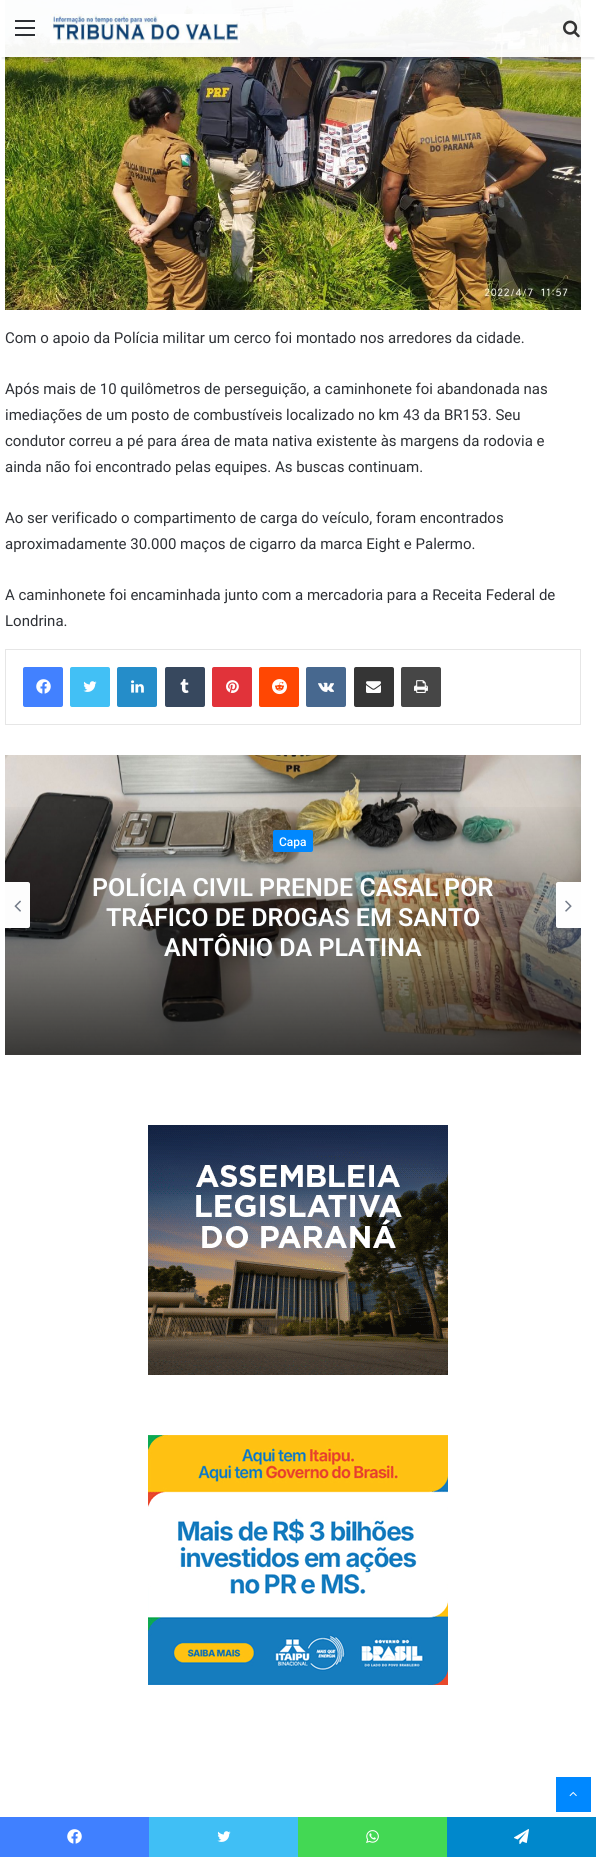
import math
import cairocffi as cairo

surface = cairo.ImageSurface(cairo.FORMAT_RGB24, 596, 1857)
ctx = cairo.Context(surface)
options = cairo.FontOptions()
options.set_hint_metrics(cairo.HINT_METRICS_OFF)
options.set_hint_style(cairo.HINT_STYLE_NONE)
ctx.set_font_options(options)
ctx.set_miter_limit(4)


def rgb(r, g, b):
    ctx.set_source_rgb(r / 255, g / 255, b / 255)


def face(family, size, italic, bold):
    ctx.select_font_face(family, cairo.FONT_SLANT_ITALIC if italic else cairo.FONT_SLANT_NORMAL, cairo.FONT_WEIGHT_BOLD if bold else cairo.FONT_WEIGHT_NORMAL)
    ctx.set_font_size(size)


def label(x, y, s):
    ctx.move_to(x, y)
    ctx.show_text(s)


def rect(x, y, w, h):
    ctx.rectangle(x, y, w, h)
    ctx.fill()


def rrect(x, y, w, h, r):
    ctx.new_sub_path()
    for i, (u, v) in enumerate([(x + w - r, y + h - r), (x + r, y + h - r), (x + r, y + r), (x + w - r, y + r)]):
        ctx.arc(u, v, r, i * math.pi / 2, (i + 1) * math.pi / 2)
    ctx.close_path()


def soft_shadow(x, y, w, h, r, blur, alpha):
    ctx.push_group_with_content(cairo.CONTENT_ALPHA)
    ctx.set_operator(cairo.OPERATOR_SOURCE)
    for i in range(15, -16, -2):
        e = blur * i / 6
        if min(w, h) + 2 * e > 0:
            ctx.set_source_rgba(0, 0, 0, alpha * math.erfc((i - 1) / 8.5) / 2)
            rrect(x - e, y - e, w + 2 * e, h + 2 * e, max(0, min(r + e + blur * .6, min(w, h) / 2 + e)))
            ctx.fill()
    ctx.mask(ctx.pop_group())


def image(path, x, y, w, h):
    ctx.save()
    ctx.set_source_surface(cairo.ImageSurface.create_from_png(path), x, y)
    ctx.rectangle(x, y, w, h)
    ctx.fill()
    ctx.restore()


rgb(255, 255, 255)
ctx.paint()
image('image2.png', 5, 0, 576, 310)
ctx.save()
ctx.rectangle(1, 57, 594, 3)
ctx.clip()
rgb(0, 0, 0)
soft_shadow(2, 6, 592, 53, 0, 1, 0.1)
ctx.restore()
ctx.set_source_rgba(1, 1, 1, 0.95)
rect(5, 0, 576, 57)
rgb(44, 47, 52)
rect(15, 27, 20, 2)
rect(15, 20, 20, 2)
rect(15, 34, 20, 2)
image('image0.png', 50, 14, 190, 29)
image('image1.png', 563, 20, 17, 18)
face('Roboto', 15, 0, 0)
rgb(46, 49, 54)
label(5, 343, 'Com o apoio da Polícia militar um cerco foi montado nos arredores da cidade.')
label(5, 394, 'Após mais de 10 quilômetros de perseguição, a caminhonete foi abandonada nas')
label(5, 420, 'imediações de um posto de combustíveis localizado no km 43 da BR153. Seu')
label(5, 446, 'condutor correu a pé para área de mata nativa existente às margens da rodovia e')
label(5, 472, 'ainda não foi encontrado pelas equipes. As buscas continuam.')
label(5, 523, 'Ao ser verificado o compartimento de carga do veículo, foram encontrados')
label(5, 549, 'aproximadamente 30.000 maços de cigarro da marca Eight e Palermo.')
label(5, 600, 'A caminhonete foi encaminhada junto com a mercadoria para a Receita Federal de')
label(5, 626, 'Londrina.')
ctx.rectangle(5.5, 649.5, 575, 75)
rgb(230, 230, 230)
ctx.set_line_width(1)
ctx.stroke()
rgb(66, 129, 255)
rrect(23, 667, 40, 40, 2)
ctx.fill()
image('image3.png', 36, 679, 15, 15)
rgb(66, 192, 245)
rrect(70, 667, 40, 40, 2)
ctx.fill()
image('image4.png', 83, 681, 14, 11)
rgb(37, 141, 201)
rrect(117, 667, 40, 40, 2)
ctx.fill()
image('image5.png', 131, 680, 13, 13)
rgb(55, 72, 94)
rrect(165, 667, 40, 40, 2)
ctx.fill()
image('image6.png', 180, 679, 9, 14)
rgb(225, 51, 58)
rrect(212, 667, 40, 40, 2)
ctx.fill()
image('image7.png', 226, 680, 13, 13)
rgb(255, 71, 3)
rrect(259, 667, 40, 40, 2)
ctx.fill()
image('image8.png', 272, 679, 15, 16)
rgb(71, 104, 143)
rrect(306, 667, 40, 40, 2)
ctx.fill()
image('image9.png', 318, 682, 16, 10)
rgb(53, 53, 53)
rrect(354, 667, 40, 40, 2)
ctx.fill()
image('image10.png', 366, 681, 15, 12)
rgb(70, 70, 70)
rrect(401, 667, 40, 40, 2)
ctx.fill()
image('image11.png', 414, 680, 14, 13)
image('image12.png', 5, 755, 576, 300)
gradient = cairo.LinearGradient(293, 800, 293, 1055)
gradient.add_color_stop_rgba(0, 0, 0, 0, 0)
gradient.add_color_stop_rgba(1, 0, 0, 0, 0.74)
ctx.set_source(gradient)
rect(5, 807, 576, 248)
ctx.set_source_rgba(0, 0.533, 1, 0.99)
rrect(273, 830, 40, 22, 2)
ctx.fill()
face('Roboto Medium', 12, 0, 0)
rgb(252, 254, 255)
label(279, 846, 'Capa')
face('Roboto SemiBold', 25, 0, 0)
label(92, 896, 'POLÍCIA CIVIL PRENDE CASAL POR')
label(106, 926, 'TRÁFICO DE DROGAS EM SANTO')
label(164, 956, 'ANTÔNIO DA PLATINA')
ctx.set_source_rgba(1, 1, 1, 0.99)
ctx.new_path()
ctx.move_to(5, 882)
ctx.line_to(28, 882)
ctx.curve_to(29, 882, 30, 883, 30, 884)
ctx.line_to(30, 926)
ctx.curve_to(30, 927, 29, 928, 28, 928)
ctx.line_to(5, 928)
ctx.close_path()
ctx.fill()
image('image13.png', 14, 900, 7, 12)
ctx.new_path()
ctx.move_to(558, 882)
ctx.line_to(581, 882)
ctx.line_to(581, 928)
ctx.line_to(558, 928)
ctx.curve_to(557, 928, 556, 927, 556, 926)
ctx.line_to(556, 884)
ctx.curve_to(556, 883, 557, 882, 558, 882)
ctx.close_path()
ctx.fill()
image('image14.png', 565, 900, 7, 12)
image('image15.png', 148, 1125, 300, 250)
image('image16.png', 148, 1435, 300, 250)
rgb(0, 136, 255)
rect(556, 1777, 35, 35)
image('image17.png', 569, 1791, 8, 6)
rgb(64, 128, 255)
rect(0, 1817, 149, 40)
image('image18.png', 67, 1829, 15, 15)
rgb(64, 191, 245)
rect(149, 1817, 149, 40)
image('image19.png', 217, 1831, 14, 11)
rgb(67, 216, 84)
rect(298, 1817, 149, 40)
image('image20.png', 366, 1830, 13, 13)
rgb(0, 136, 204)
rect(447, 1817, 149, 40)
image('image21.png', 514, 1829, 15, 15)
surface.write_to_png('render.png')
